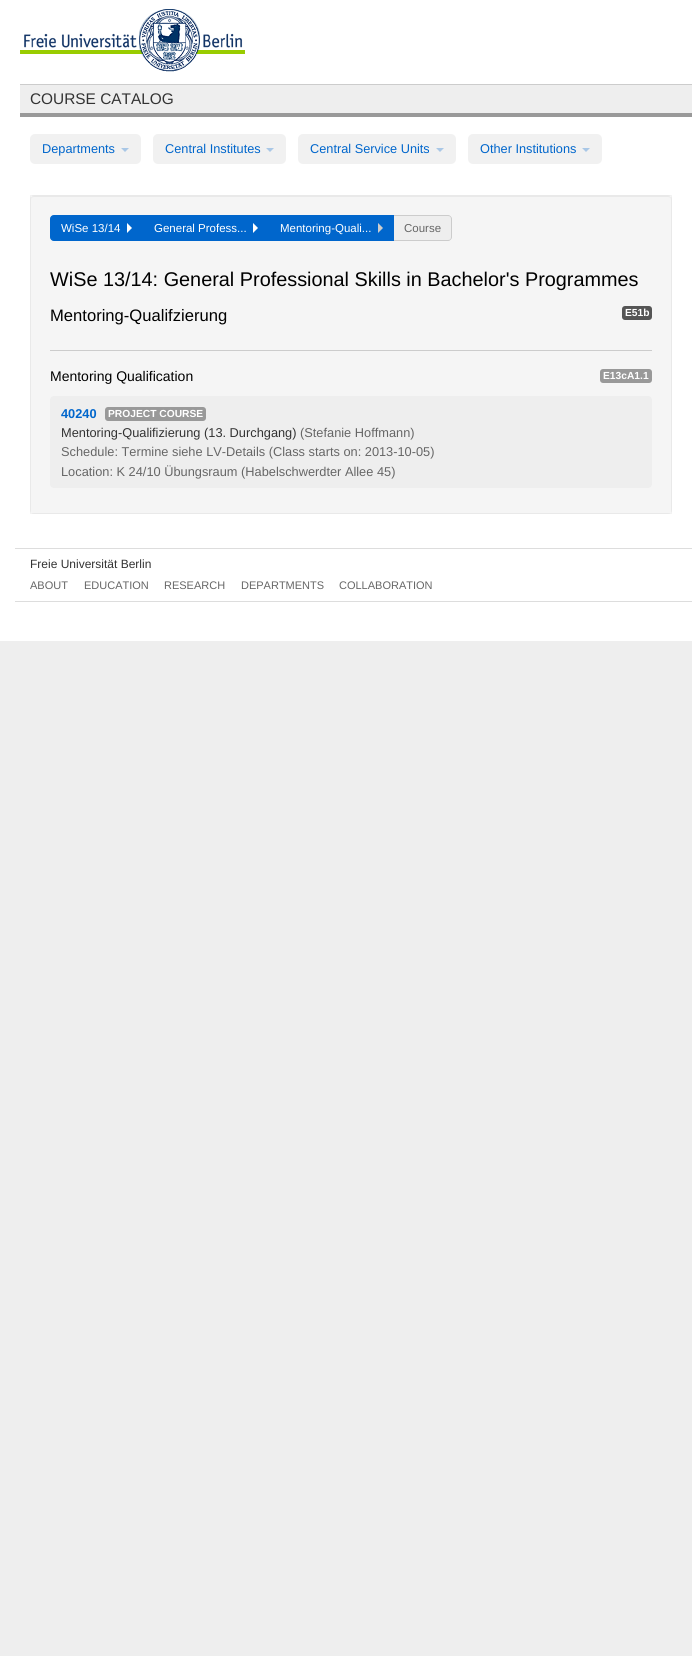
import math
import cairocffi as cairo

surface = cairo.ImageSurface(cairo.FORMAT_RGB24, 692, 1656)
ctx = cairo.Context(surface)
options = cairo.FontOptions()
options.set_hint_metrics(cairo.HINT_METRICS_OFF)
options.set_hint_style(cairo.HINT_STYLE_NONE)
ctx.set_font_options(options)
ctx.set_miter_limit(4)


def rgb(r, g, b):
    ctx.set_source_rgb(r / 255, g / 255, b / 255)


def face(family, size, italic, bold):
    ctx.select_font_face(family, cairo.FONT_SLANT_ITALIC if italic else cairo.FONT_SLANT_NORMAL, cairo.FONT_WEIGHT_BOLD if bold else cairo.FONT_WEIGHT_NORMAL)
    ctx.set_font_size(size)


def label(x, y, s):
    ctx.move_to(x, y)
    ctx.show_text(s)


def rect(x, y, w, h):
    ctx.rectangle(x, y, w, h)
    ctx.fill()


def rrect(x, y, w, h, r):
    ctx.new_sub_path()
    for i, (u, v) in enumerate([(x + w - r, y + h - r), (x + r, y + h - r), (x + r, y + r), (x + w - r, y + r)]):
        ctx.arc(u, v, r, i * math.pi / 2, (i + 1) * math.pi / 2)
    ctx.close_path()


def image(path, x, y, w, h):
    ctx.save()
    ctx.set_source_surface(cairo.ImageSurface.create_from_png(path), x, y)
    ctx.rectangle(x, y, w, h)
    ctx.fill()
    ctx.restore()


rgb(238, 238, 238)
ctx.paint()
rgb(255, 255, 255)
rect(0, 0, 692, 641)
image('image0.png', 20, 9, 225, 63)
rgb(238, 238, 238)
rect(20, 85, 672, 28)
rgb(204, 204, 204)
rect(20, 84, 672, 1)
rgb(153, 153, 153)
rect(20, 113, 672, 4)
face('Liberation Sans', 15.4, 0, 0)
rgb(51, 51, 51)
label(30, 104, 'COURSE CATALOG')
rgb(241, 241, 241)
rrect(30, 134, 111, 30, 5)
ctx.fill()
face('Liberation Sans', 12.75, 0, 0)
rgb(0, 102, 204)
label(42, 153, 'Departments')
rgb(169, 199, 230)
ctx.new_path()
ctx.move_to(121, 148)
ctx.line_to(129, 148)
ctx.line_to(125, 152)
ctx.close_path()
ctx.fill()
rgb(241, 241, 241)
rrect(153, 134, 133, 30, 5)
ctx.fill()
rgb(0, 102, 204)
label(165, 153, 'Central Institutes')
rgb(169, 199, 230)
ctx.new_path()
ctx.move_to(266, 148)
ctx.line_to(274, 148)
ctx.line_to(270, 152)
ctx.close_path()
ctx.fill()
rgb(241, 241, 241)
rrect(298, 134, 158, 30, 5)
ctx.fill()
rgb(0, 102, 204)
label(310, 153, 'Central Service Units')
rgb(169, 199, 230)
ctx.new_path()
ctx.move_to(436, 148)
ctx.line_to(444, 148)
ctx.line_to(440, 152)
ctx.close_path()
ctx.fill()
rgb(241, 241, 241)
rrect(468, 134, 134, 30, 5)
ctx.fill()
rgb(0, 102, 204)
label(480, 153, 'Other Institutions')
rgb(169, 199, 230)
ctx.new_path()
ctx.move_to(582, 148)
ctx.line_to(590, 148)
ctx.line_to(586, 152)
ctx.close_path()
ctx.fill()
rgb(245, 245, 245)
rrect(30, 195, 642, 319, 4)
ctx.fill()
rgb(233, 233, 233)
ctx.new_path()
ctx.move_to(34, 197)
ctx.line_to(668, 197)
ctx.curve_to(670, 197, 671, 198, 671, 200)
ctx.line_to(671, 199)
ctx.curve_to(671, 197, 670, 196, 668, 196)
ctx.line_to(34, 196)
ctx.curve_to(32, 196, 31, 197, 31, 199)
ctx.line_to(31, 200)
ctx.curve_to(31, 198, 32, 197, 34, 197)
ctx.close_path()
ctx.fill()
ctx.rectangle(30.5, 195.5, 641, 318)
ctx.set_source_rgba(0, 0, 0, 0.05)
ctx.set_line_width(1)
ctx.stroke()
rgb(0, 102, 204)
ctx.new_path()
ctx.move_to(54, 215.5)
ctx.line_to(142.5, 215.5)
ctx.line_to(142.5, 240.5)
ctx.line_to(54, 240.5)
ctx.curve_to(52, 240.5, 50.5, 239, 50.5, 237)
ctx.line_to(50.5, 219)
ctx.curve_to(50.5, 217, 52, 215.5, 54, 215.5)
ctx.close_path()
ctx.fill_preserve()
ctx.stroke()
face('Liberation Sans', 11.5, 0, 0)
rgb(255, 255, 255)
label(61, 232, 'WiSe 13/14')
ctx.new_path()
ctx.move_to(127, 233)
ctx.line_to(127, 223)
ctx.line_to(132, 228)
ctx.close_path()
ctx.fill()
rgb(0, 102, 204)
rect(143, 215, 251, 26)
rgb(255, 255, 255)
label(154, 232, 'General Profess...')
ctx.new_path()
ctx.move_to(253, 233)
ctx.line_to(253, 223)
ctx.line_to(258, 228)
ctx.close_path()
ctx.fill()
label(280, 232, 'Mentoring-Quali...')
rgb(204, 204, 204)
ctx.new_path()
ctx.move_to(378, 233)
ctx.line_to(378, 223)
ctx.line_to(383, 228)
ctx.close_path()
ctx.fill()
rgb(238, 238, 238)
ctx.new_path()
ctx.move_to(394, 215)
ctx.line_to(448, 215)
ctx.curve_to(450, 215, 452, 217, 452, 219)
ctx.line_to(452, 237)
ctx.curve_to(452, 239, 450, 241, 448, 241)
ctx.line_to(394, 241)
ctx.close_path()
ctx.fill()
rgb(204, 204, 204)
ctx.set_fill_rule(cairo.FILL_RULE_EVEN_ODD)
ctx.new_path()
ctx.move_to(394, 215)
ctx.line_to(448, 215)
ctx.curve_to(450, 215, 452, 217, 452, 219)
ctx.line_to(452, 237)
ctx.curve_to(452, 239, 450, 241, 448, 241)
ctx.line_to(394, 241)
ctx.close_path()
ctx.move_to(394, 216)
ctx.line_to(448, 216)
ctx.curve_to(450, 216, 451, 217, 451, 219)
ctx.line_to(451, 237)
ctx.curve_to(451, 239, 450, 240, 448, 240)
ctx.line_to(394, 240)
ctx.close_path()
ctx.fill()
rgb(102, 102, 102)
label(404, 232, 'Course')
face('Liberation Sans', 19.85, 0, 0)
rgb(0, 0, 0)
label(50, 286, 'WiSe 13/14: General Professional Skills in Bachelor\'s Programmes')
face('Liberation Sans', 16.6, 0, 0)
label(50, 321, 'Mentoring-Qualifzierung')
rgb(85, 85, 85)
rrect(622, 306, 30, 14, 3)
ctx.fill()
face('Liberation Sans', 10.25, 0, 1)
rgb(255, 255, 255)
label(625, 316, 'E51b')
rgb(204, 204, 204)
rect(50, 350, 602, 1)
face('Liberation Sans', 14, 0, 0)
rgb(0, 0, 0)
label(50, 381, 'Mentoring Qualification')
rgb(153, 153, 153)
rrect(600, 369, 52, 14, 3)
ctx.fill()
face('Liberation Sans', 10.25, 0, 1)
rgb(255, 255, 255)
label(603, 379, 'E13cA1.1')
rgb(238, 238, 238)
rrect(50, 396, 602, 92, 4)
ctx.fill()
face('Liberation Sans', 12.8, 0, 1)
rgb(0, 102, 204)
label(61, 418, '40240')
rgb(153, 153, 153)
rrect(105, 407, 101, 14, 3)
ctx.fill()
face('Liberation Sans', 10.25, 0, 1)
rgb(255, 255, 255)
label(108, 417, 'PROJECT COURSE')
face('Liberation Sans', 12.8, 0, 0)
rgb(51, 51, 51)
label(61, 437, 'Mentoring-Qualifizierung (13. Durchgang)')
rgb(102, 102, 102)
label(300, 437, '(Stefanie Hoffmann)')
label(61, 456, 'Schedule: Termine siehe LV-Details (Class starts on: 2013-10-05)')
label(61, 476, 'Location: K 24/10 Übungsraum (Habelschwerdter Allee 45)')
rgb(221, 221, 221)
rect(15, 548, 677, 1)
face('Liberation Sans', 12, 0, 0)
rgb(51, 51, 51)
label(30, 568, 'Freie Universität Berlin')
face('Liberation Sans', 11, 0, 0)
rgb(102, 102, 102)
label(30, 589, 'ABOUT')
label(84, 589, 'EDUCATION')
label(164, 589, 'RESEARCH')
label(241, 589, 'DEPARTMENTS')
label(339, 589, 'COLLABORATION')
rgb(221, 221, 221)
rect(15, 601, 677, 1)
surface.write_to_png('render.png')
